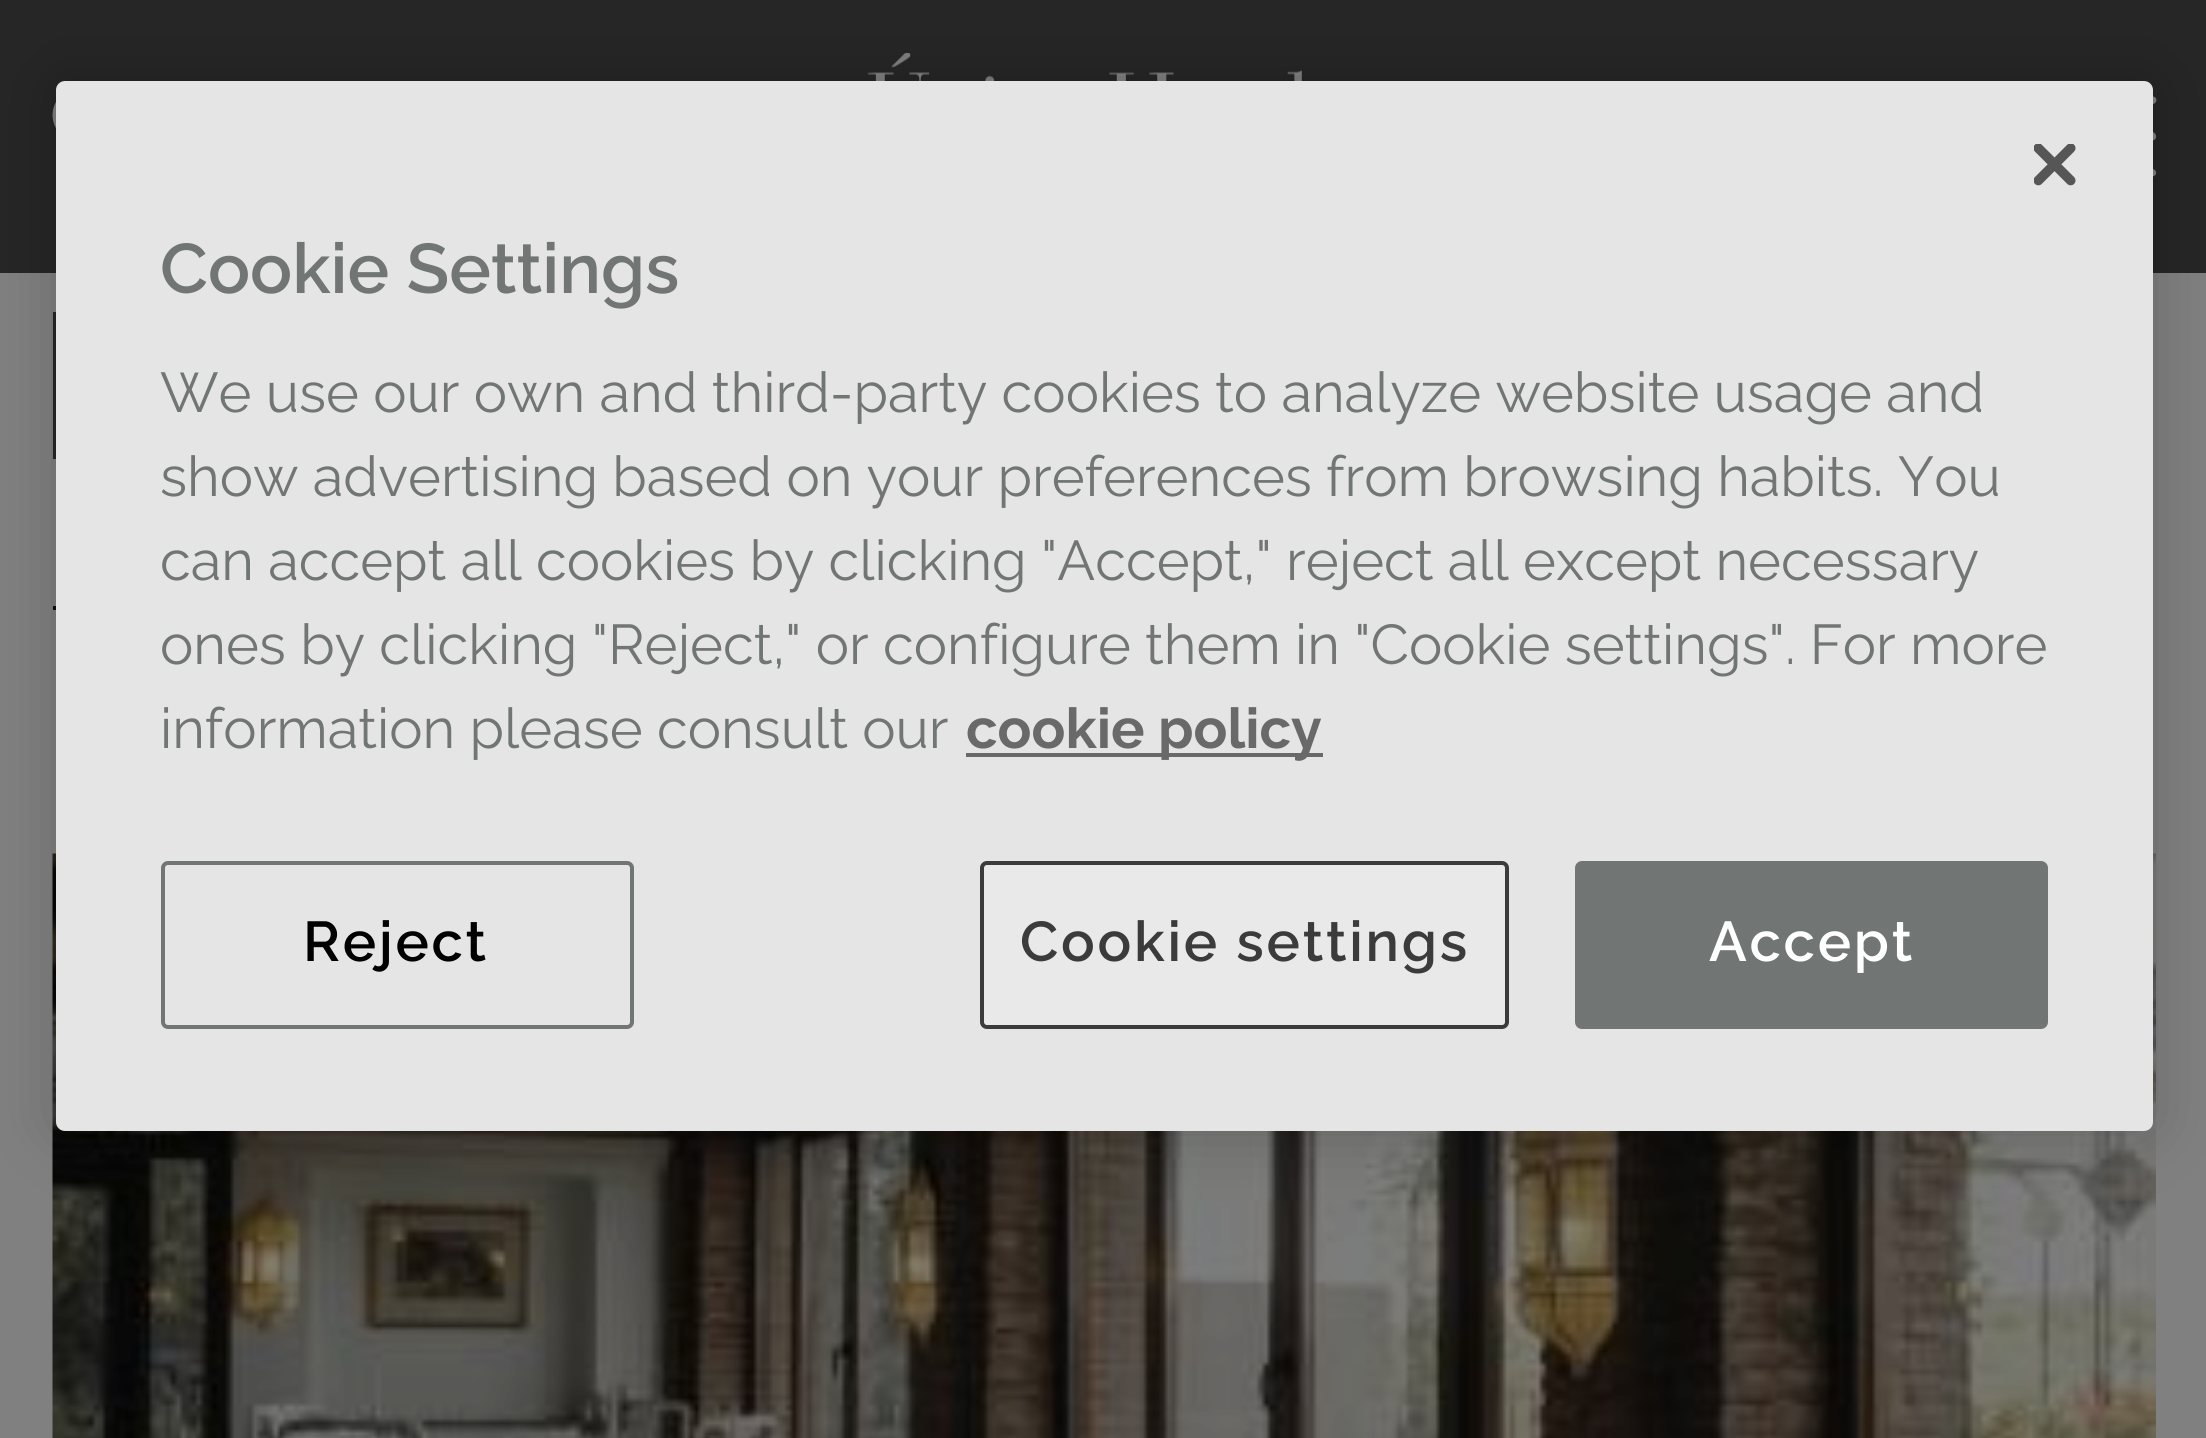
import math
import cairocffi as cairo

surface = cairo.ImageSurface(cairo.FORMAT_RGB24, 2206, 1438)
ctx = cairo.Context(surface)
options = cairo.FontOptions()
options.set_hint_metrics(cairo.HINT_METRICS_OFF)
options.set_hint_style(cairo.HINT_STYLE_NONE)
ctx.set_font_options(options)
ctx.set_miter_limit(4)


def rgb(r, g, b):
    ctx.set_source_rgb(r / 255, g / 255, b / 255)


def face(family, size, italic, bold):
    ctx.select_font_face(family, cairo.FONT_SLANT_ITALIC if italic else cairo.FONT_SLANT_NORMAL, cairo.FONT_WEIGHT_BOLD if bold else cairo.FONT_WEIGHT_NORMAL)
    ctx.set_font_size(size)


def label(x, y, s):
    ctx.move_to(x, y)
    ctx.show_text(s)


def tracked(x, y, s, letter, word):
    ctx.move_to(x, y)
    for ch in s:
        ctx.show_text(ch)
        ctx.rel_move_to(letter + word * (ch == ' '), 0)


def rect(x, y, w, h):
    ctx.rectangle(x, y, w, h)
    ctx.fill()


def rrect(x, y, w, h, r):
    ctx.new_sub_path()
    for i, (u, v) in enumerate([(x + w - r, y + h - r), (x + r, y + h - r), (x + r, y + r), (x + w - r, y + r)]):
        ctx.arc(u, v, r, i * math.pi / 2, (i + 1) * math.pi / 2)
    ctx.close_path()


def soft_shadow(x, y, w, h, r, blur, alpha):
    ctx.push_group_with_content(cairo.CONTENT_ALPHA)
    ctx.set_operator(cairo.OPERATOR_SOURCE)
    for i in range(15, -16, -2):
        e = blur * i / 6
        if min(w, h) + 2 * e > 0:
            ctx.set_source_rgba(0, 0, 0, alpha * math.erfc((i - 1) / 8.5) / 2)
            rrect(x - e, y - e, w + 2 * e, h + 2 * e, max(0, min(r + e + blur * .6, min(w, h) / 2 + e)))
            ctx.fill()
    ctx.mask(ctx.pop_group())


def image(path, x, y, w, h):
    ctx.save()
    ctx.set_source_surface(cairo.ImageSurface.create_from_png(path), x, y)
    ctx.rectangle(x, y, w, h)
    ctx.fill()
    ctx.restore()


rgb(128, 128, 128)
ctx.paint()
rgb(38, 38, 38)
rect(0, 0, 2206, 273)
image('image0.png', 867, 53, 435, 28)
image('image1.png', 52, 102, 4, 26)
rgb(128, 128, 128)
ctx.new_path()
ctx.move_to(2055, 104)
ctx.curve_to(2051, 104, 2049, 99, 2053, 97)
ctx.curve_to(2055, 95, 2127, 96, 2136, 96)
ctx.curve_to(2146, 96, 2159, 94, 2156, 102)
ctx.curve_to(2155, 103, 2154, 104, 2153, 104)
ctx.close_path()
ctx.move_to(2152, 132)
ctx.curve_to(2156, 132, 2158, 138, 2154, 140)
ctx.curve_to(2152, 142, 2080, 141, 2071, 141)
ctx.curve_to(2065, 141, 2052, 143, 2051, 137)
ctx.line_to(2052, 134)
ctx.line_to(2054, 132)
ctx.close_path()
ctx.move_to(2152, 169)
ctx.curve_to(2156, 169, 2158, 174, 2154, 176)
ctx.curve_to(2152, 178, 2080, 177, 2071, 177)
ctx.curve_to(2061, 177, 2048, 179, 2051, 171)
ctx.curve_to(2052, 170, 2053, 169, 2054, 169)
ctx.close_path()
ctx.fill()
rgb(38, 38, 38)
rect(53, 312, 3, 147)
rgb(16, 16, 16)
rect(53, 606, 3, 4)
image('image2.png', 52, 853, 2104, 585)
rgb(0, 0, 0)
soft_shadow(56, 81, 2097, 1050, 9, 31.5, 0.2)
rgb(229, 229, 229)
rrect(56, 81, 2097, 1050, 9)
ctx.fill()
image('image3.png', 2034, 144, 42, 42)
face('Raleway SemiBold', 70, 0, 0)
rgb(113, 118, 117)
label(160, 293, 'Cookie Settings')
face('Raleway', 56, 0, 0)
label(160, 412, 'We use our own and third-party cookies to analyze website usage and')
label(160, 496, 'show advertising based on your preferences from browsing habits. You')
label(160, 580, 'can accept all cookies by clicking "Accept," reject all except necessary')
label(160, 664, 'ones by clicking "Reject," or configure them in "Cookie settings". For more')
label(160, 748, 'information please consult our')
rgb(105, 105, 105)
rect(966, 753, 357, 4)
face('Raleway', 56, 0, 1)
label(966, 748, 'cookie policy')
rrect(163, 863, 469, 164, 5)
rgb(113, 118, 117)
ctx.set_line_width(4)
ctx.stroke()
face('Raleway SemiBold', 56, 0, 0)
rgb(0, 0, 0)
tracked(303, 961, 'Reject', 2.75, 0)
rgb(113, 118, 117)
rrect(1577, 863, 469, 164, 5)
ctx.fill_preserve()
ctx.stroke()
rgb(255, 255, 255)
tracked(1709, 961, 'Accept', 2.75, 0)
rgb(233, 233, 233)
rrect(982, 863, 525, 164, 5)
ctx.fill_preserve()
rgb(59, 59, 59)
ctx.stroke()
tracked(1020, 961, 'Cookie settings', 2.75, 0)
surface.write_to_png('render.png')
